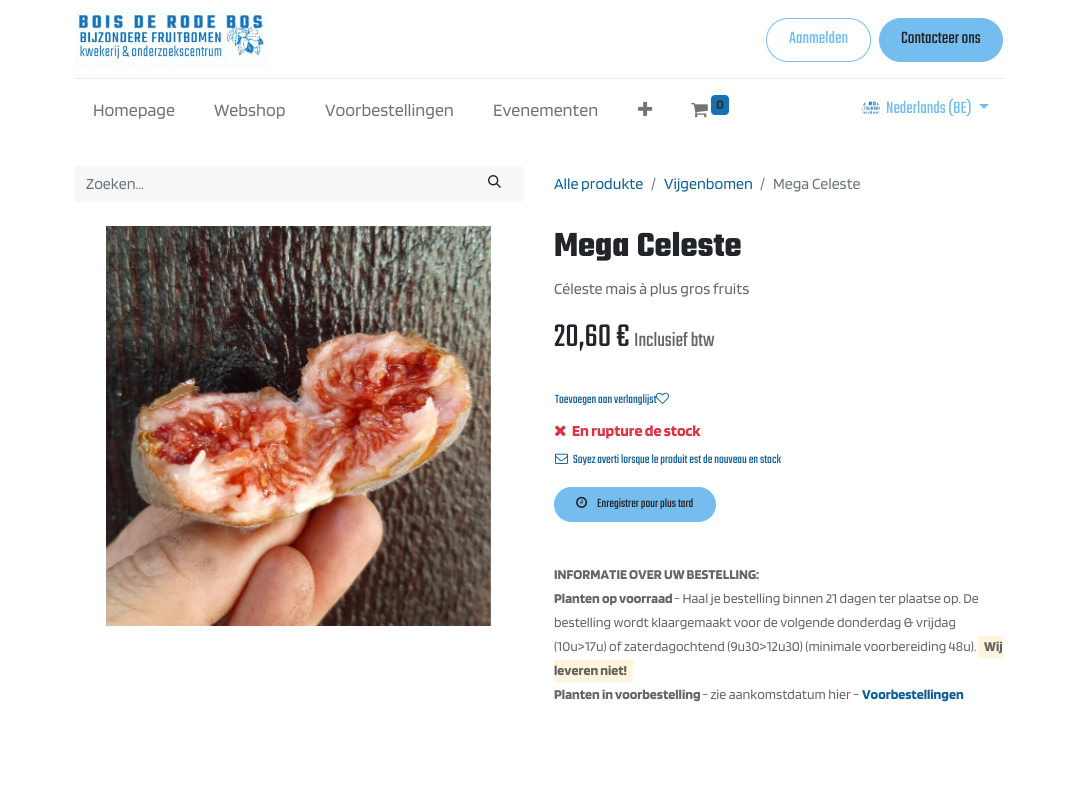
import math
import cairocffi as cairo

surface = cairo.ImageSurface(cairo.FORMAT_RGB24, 1077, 808)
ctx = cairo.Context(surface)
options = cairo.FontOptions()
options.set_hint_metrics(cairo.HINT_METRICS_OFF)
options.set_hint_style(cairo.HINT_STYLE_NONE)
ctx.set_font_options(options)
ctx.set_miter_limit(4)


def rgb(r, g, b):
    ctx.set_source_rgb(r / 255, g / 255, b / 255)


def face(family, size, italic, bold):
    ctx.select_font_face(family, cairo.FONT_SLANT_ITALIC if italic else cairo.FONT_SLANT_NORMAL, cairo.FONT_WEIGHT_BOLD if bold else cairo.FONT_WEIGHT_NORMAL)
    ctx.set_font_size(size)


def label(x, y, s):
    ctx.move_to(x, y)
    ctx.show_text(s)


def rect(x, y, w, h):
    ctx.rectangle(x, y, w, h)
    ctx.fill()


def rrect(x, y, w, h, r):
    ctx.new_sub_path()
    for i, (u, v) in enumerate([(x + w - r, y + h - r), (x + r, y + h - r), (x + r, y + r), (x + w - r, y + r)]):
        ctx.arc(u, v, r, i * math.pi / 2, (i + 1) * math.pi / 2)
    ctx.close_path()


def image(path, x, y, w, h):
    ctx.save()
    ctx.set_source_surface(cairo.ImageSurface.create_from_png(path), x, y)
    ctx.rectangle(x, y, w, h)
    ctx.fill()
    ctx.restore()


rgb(255, 255, 255)
ctx.paint()
image('image0.png', 75, 11, 194, 57)
rrect(766.5, 18.5, 104, 43, 21.5)
rgb(117, 188, 239)
ctx.set_line_width(1)
ctx.stroke()
face('Teko', 18, 0, 0)
label(789, 43, 'Aanmelden')
rrect(879.5, 18.5, 123, 43, 21.5)
ctx.fill_preserve()
ctx.stroke()
rgb(33, 37, 41)
label(901, 43, 'Contacteer ons')
rgb(233, 236, 239)
rect(74, 78, 930, 1)
face('Blinker', 18, 0, 0)
rgb(115, 115, 115)
label(93, 116, 'Homepage')
label(214, 116, 'Webshop')
label(325, 116, 'Voorbestellingen')
label(493, 116, 'Evenementen')
image('image1.png', 638, 101, 15, 15)
image('image2.png', 691, 103, 17, 15)
rgb(21, 115, 181)
rrect(711, 95, 18, 20, 4)
ctx.fill()
face('Blinker', 14, 0, 1)
rgb(51, 51, 51)
label(716, 109, '0')
image('image3.png', 862, 101, 18, 13)
face('Teko', 18, 0, 0)
rgb(117, 188, 239)
label(886, 113, 'Nederlands (BE)')
ctx.new_path()
ctx.move_to(979, 104)
ctx.line_to(989, 104)
ctx.line_to(984, 109)
ctx.close_path()
ctx.fill()
rgb(247, 247, 247)
ctx.new_path()
ctx.move_to(78, 166)
ctx.line_to(466, 166)
ctx.line_to(466, 202)
ctx.line_to(78, 202)
ctx.curve_to(76, 202, 74, 200, 74, 198)
ctx.line_to(74, 170)
ctx.curve_to(74, 168, 76, 166, 78, 166)
ctx.close_path()
ctx.fill()
face('Blinker', 16, 0, 0)
rgb(108, 117, 125)
label(86, 189, 'Zoeken...')
rgb(247, 247, 247)
ctx.new_path()
ctx.move_to(465, 166)
ctx.line_to(520, 166)
ctx.curve_to(522, 166, 524, 168, 524, 170)
ctx.line_to(524, 198)
ctx.curve_to(524, 200, 522, 202, 520, 202)
ctx.line_to(465, 202)
ctx.close_path()
ctx.fill()
image('image4.png', 488, 175, 13, 13)
rgb(17, 95, 149)
label(554, 189, 'Alle produkte')
rgb(108, 117, 125)
label(651, 189, '/')
rgb(17, 95, 149)
label(664, 189, 'Vijgenbomen')
rgb(108, 117, 125)
label(760, 189, '/')
label(773, 189, 'Mega Celeste')
image('image5.png', 106, 226, 385, 400)
face('Teko', 36, 0, 1)
rgb(33, 37, 41)
label(554, 256, 'Mega Celeste')
face('Blinker', 16, 0, 0)
rgb(100, 102, 105)
label(554, 294, 'Céleste mais à plus gros fruits')
face('Teko', 34.5, 0, 0)
rgb(33, 37, 41)
label(554, 346, '20,60 €')
face('Teko', 21, 0, 0)
rgb(100, 102, 105)
label(634, 346, 'Inclusief btw')
face('Teko', 13, 0, 0)
rgb(17, 95, 149)
label(555, 403, 'Toevoegen aan verlanglijst')
image('image6.png', 656, 392, 13, 12)
image('image7.png', 555, 425, 11, 12)
face('Blinker', 16, 0, 1)
rgb(220, 53, 69)
label(572, 436, 'En rupture de stock')
image('image8.png', 555, 453, 13, 11)
face('Teko', 13, 0, 0)
rgb(17, 95, 149)
label(573, 463, 'Soyez averti lorsque le produit est de nouveau en stock')
rgb(117, 188, 239)
rrect(554.5, 487.5, 161, 34, 17)
ctx.fill_preserve()
ctx.stroke()
image('image9.png', 576, 496, 12, 12)
rgb(33, 37, 41)
label(597, 507, 'Enregistrer pour plus tard')
face('Blinker', 14, 0, 1)
rgb(100, 102, 105)
label(554, 579, 'INFORMATIE OVER UW BESTELLING:')
label(554, 603, 'Planten op voorraad')
face('Blinker', 14, 0, 0)
label(674, 603, '- Haal je bestelling binnen 21 dagen ter plaatse op. De')
label(554, 627, 'bestelling wordt klaargemaakt voor de volgende donderdag & vrijdag')
label(554, 651, '(10u>17u) of zaterdagochtend (9u30>12u30) (minimale voorbereiding 48u).')
rgb(255, 245, 221)
rect(978, 636, 25, 22)
face('Blinker', 14, 0, 1)
rgb(100, 99, 95)
label(984, 651, 'Wij')
rgb(255, 245, 221)
rect(554, 660, 79, 22)
rgb(100, 99, 95)
label(554, 675, 'leveren niet!')
rgb(100, 102, 105)
label(554, 699, 'Planten in voorbestelling')
face('Blinker', 14, 0, 0)
label(702, 699, '- zie aankomstdatum hier -')
face('Blinker', 14, 0, 1)
rgb(17, 95, 149)
label(862, 699, 'Voorbestellingen')
surface.write_to_png('render.png')
